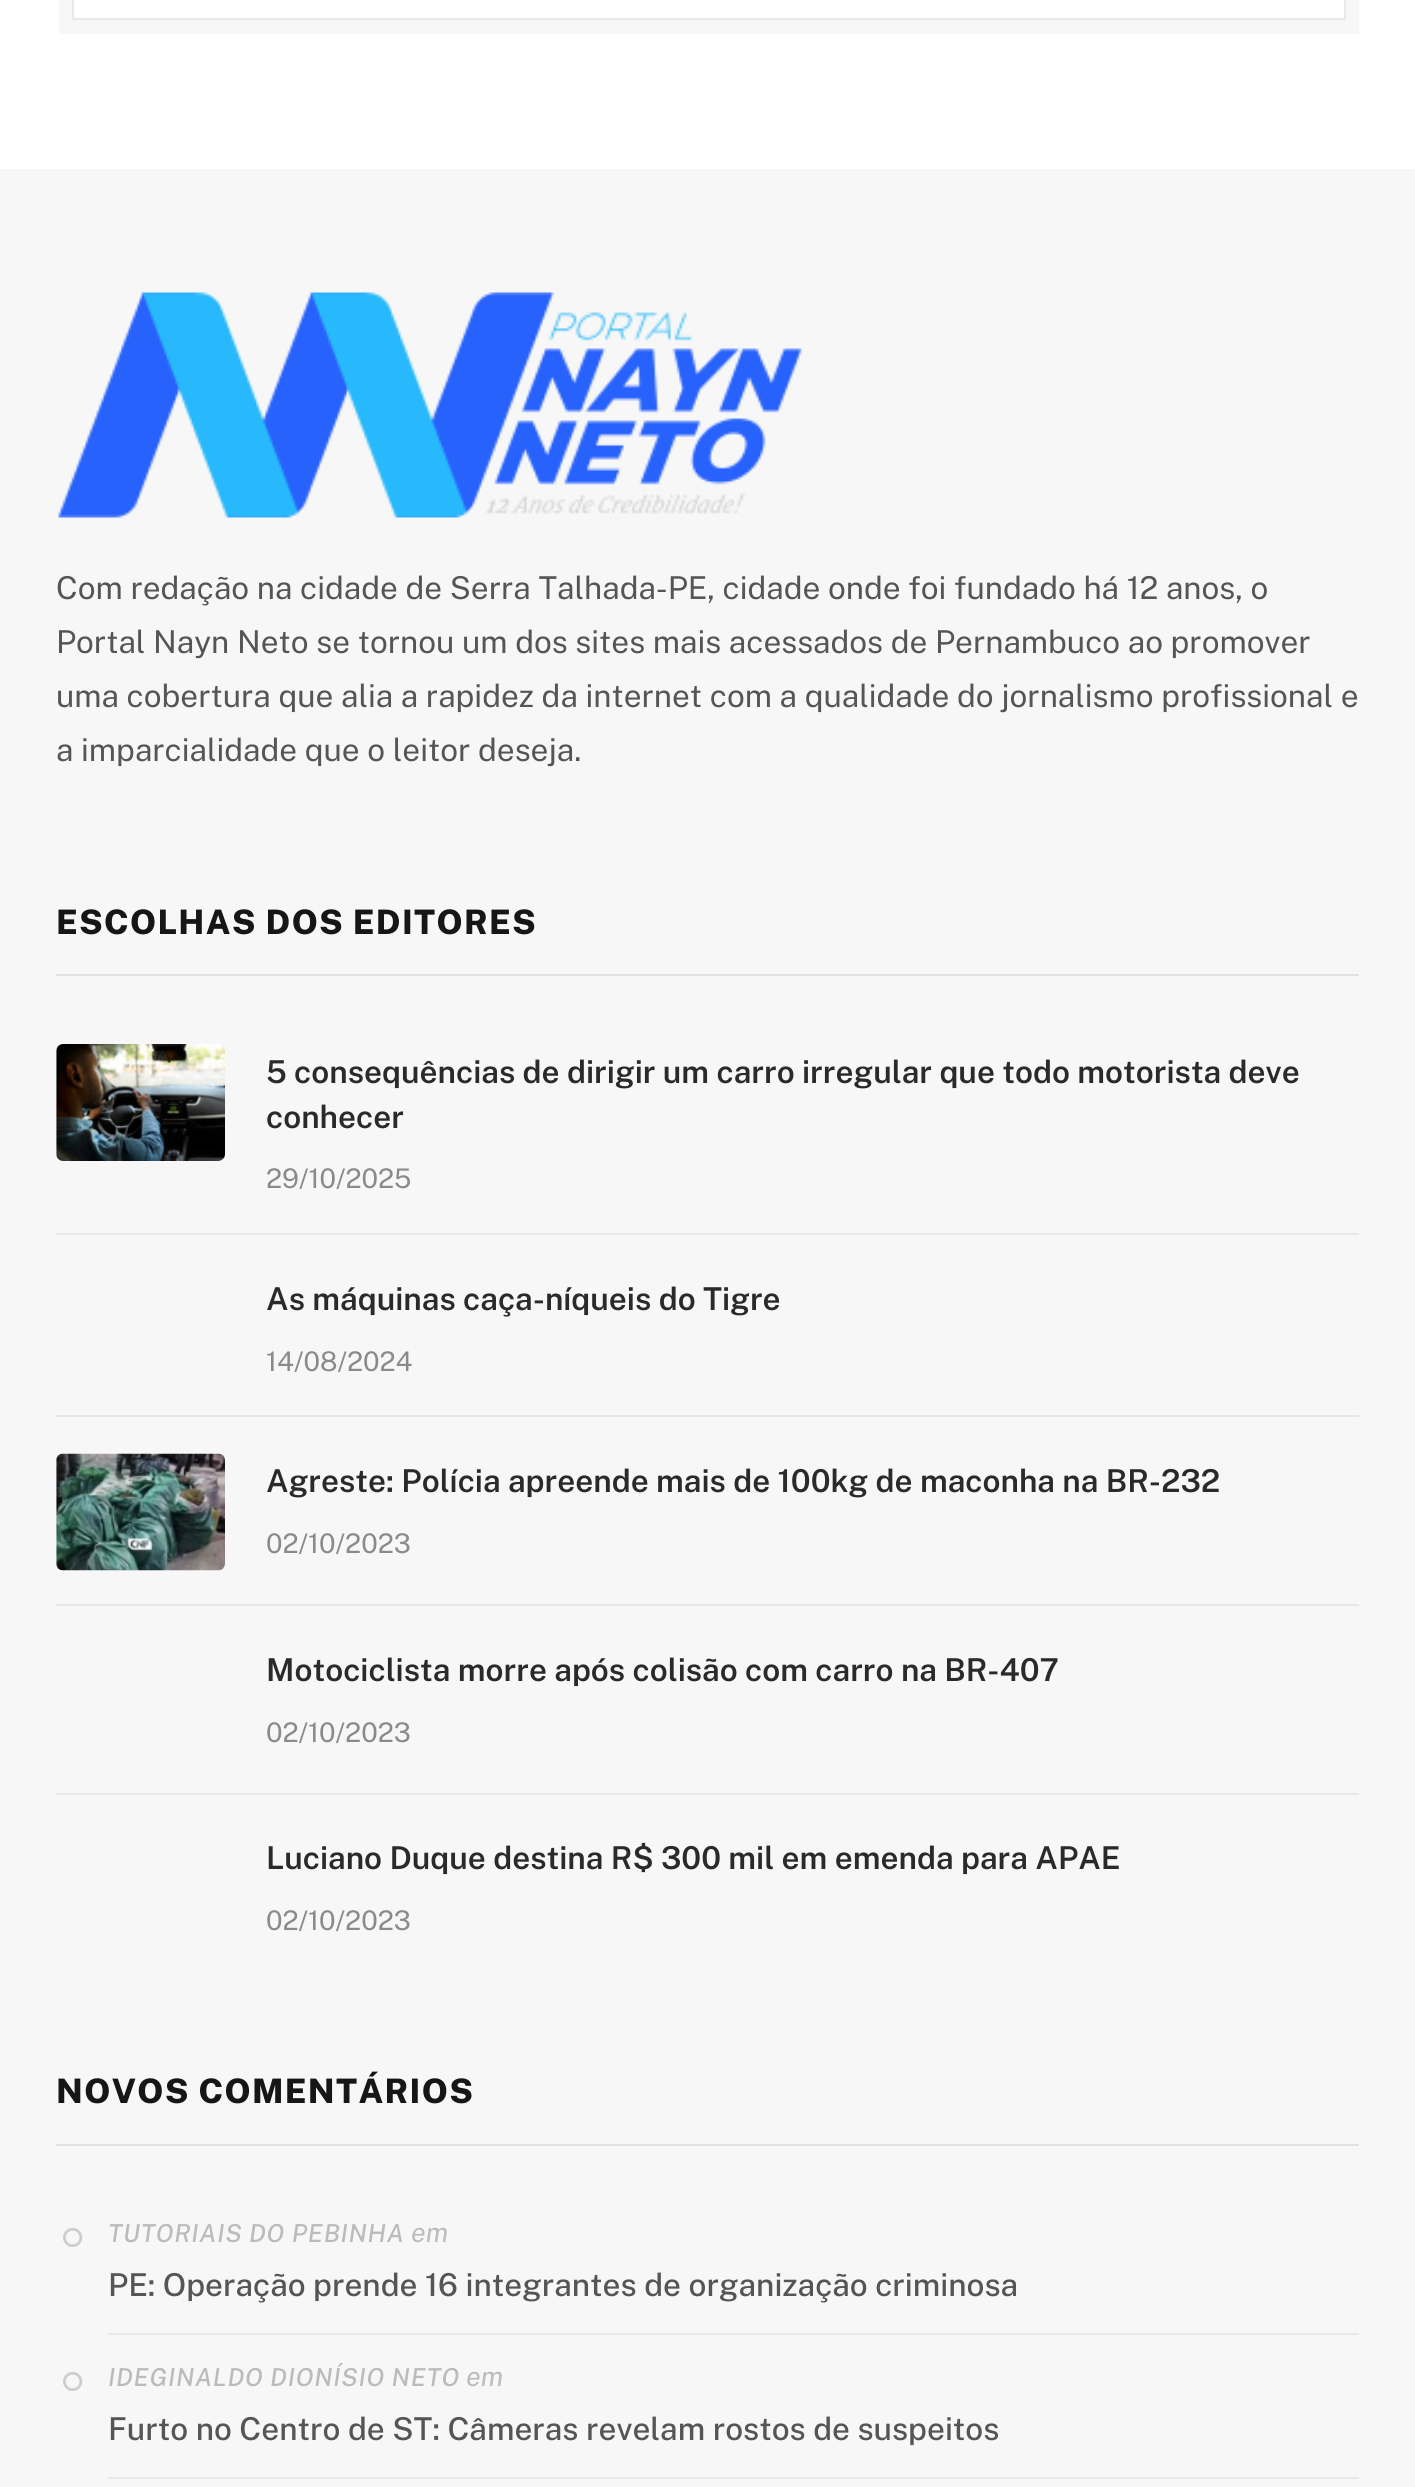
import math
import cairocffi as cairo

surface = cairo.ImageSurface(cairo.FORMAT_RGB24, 1415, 2487)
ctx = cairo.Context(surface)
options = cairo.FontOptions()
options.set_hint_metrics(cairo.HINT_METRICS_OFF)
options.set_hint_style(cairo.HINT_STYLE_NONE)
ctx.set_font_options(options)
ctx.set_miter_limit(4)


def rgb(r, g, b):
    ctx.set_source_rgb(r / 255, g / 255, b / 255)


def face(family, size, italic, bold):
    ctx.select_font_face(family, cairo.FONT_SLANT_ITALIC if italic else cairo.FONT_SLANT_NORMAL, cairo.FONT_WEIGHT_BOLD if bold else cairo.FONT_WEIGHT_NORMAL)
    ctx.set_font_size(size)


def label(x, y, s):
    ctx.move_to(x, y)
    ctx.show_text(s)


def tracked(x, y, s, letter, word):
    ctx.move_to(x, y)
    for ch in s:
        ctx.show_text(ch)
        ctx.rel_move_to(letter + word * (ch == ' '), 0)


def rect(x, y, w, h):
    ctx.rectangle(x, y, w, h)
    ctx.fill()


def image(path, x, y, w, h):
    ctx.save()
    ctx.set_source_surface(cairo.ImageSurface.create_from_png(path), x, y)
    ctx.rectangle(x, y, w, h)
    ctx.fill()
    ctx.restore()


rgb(255, 255, 255)
ctx.paint()
ctx.rectangle(66, -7, 1286, 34)
rgb(247, 247, 247)
ctx.set_line_width(14)
ctx.stroke()
ctx.rectangle(73, -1, 1272, 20)
rgb(232, 232, 232)
ctx.set_line_width(2)
ctx.stroke()
rgb(247, 247, 247)
rect(0, 169, 1415, 2318)
image('image0.png', 58, 292, 744, 226)
face('Public Sans', 31.5, 0, 0)
rgb(85, 85, 85)
label(56, 599, 'Com redação na cidade de Serra Talhada-PE, cidade onde foi fundado há 12 anos, o')
label(56, 653, 'Portal Nayn Neto se tornou um dos sites mais acessados de Pernambuco ao promover')
label(56, 707, 'uma cobertura que alia a rapidez da internet com a qualidade do jornalismo profissional e')
label(56, 761, 'a imparcialidade que o leitor deseja.')
rgb(226, 226, 226)
rect(56, 974, 1303, 2)
face('Public Sans ExtraBold', 33.75, 0, 0)
rgb(22, 22, 22)
tracked(56, 934, 'ESCOLHAS DOS EDITORES', 1.35, 0)
image('image1.png', 56, 1044, 169, 117)
face('Public Sans SemiBold', 31.5, 0, 0)
rgb(42, 42, 42)
label(266, 1083, '5 consequências de dirigir um carro irregular que todo motorista deve')
label(266, 1128, 'conhecer')
face('Public Sans', 27, 0, 0)
rgb(138, 138, 138)
label(266, 1188, '29/10/2025')
rgb(232, 232, 232)
rect(56, 1233, 1303, 2)
face('Public Sans SemiBold', 31.5, 0, 0)
rgb(42, 42, 42)
label(266, 1310, 'As máquinas caça-níqueis do Tigre')
face('Public Sans', 27, 0, 0)
rgb(138, 138, 138)
label(266, 1371, '14/08/2024')
rgb(232, 232, 232)
rect(56, 1415, 1303, 2)
image('image2.png', 56, 1453, 169, 118)
face('Public Sans SemiBold', 31.5, 0, 0)
rgb(42, 42, 42)
label(266, 1492, 'Agreste: Polícia apreende mais de 100kg de maconha na BR-232')
face('Public Sans', 27, 0, 0)
rgb(138, 138, 138)
label(266, 1553, '02/10/2023')
rgb(232, 232, 232)
rect(56, 1604, 1303, 2)
face('Public Sans SemiBold', 31.5, 0, 0)
rgb(42, 42, 42)
label(266, 1681, 'Motociclista morre após colisão com carro na BR-407')
face('Public Sans', 27, 0, 0)
rgb(138, 138, 138)
label(266, 1742, '02/10/2023')
rgb(232, 232, 232)
rect(56, 1793, 1303, 2)
face('Public Sans SemiBold', 31.5, 0, 0)
rgb(42, 42, 42)
label(266, 1869, 'Luciano Duque destina R$ 300 mil em emenda para APAE')
face('Public Sans', 27, 0, 0)
rgb(138, 138, 138)
label(266, 1930, '02/10/2023')
rgb(226, 226, 226)
rect(56, 2144, 1303, 2)
face('Public Sans ExtraBold', 33.75, 0, 0)
rgb(22, 22, 22)
tracked(56, 2103, 'NOVOS COMENTÁRIOS', 1.35, 0)
rgb(232, 232, 232)
rect(108, 2333, 1251, 2)
image('image3.png', 63, 2227, 20, 20)
face('Public Sans Medium', 24.75, 1, 0)
rgb(187, 187, 187)
tracked(108, 2242, 'TUTORIAIS DO PEBINHA', 0.75, 0)
face('Public Sans', 27, 1, 0)
label(411, 2242, 'em')
face('Public Sans Medium', 31.5, 0, 0)
rgb(85, 85, 85)
label(108, 2296, 'PE: Operação prende 16 integrantes de organização criminosa')
rgb(232, 232, 232)
rect(108, 2477, 1251, 2)
image('image3.png', 63, 2371, 20, 20)
face('Public Sans Medium', 24.75, 1, 0)
rgb(187, 187, 187)
tracked(108, 2386, 'IDEGINALDO DIONÍSIO NETO', 0.75, 0)
face('Public Sans', 27, 1, 0)
label(466, 2386, 'em')
face('Public Sans Medium', 31.5, 0, 0)
rgb(85, 85, 85)
label(108, 2440, 'Furto no Centro de ST: Câmeras revelam rostos de suspeitos')
surface.write_to_png('render.png')
